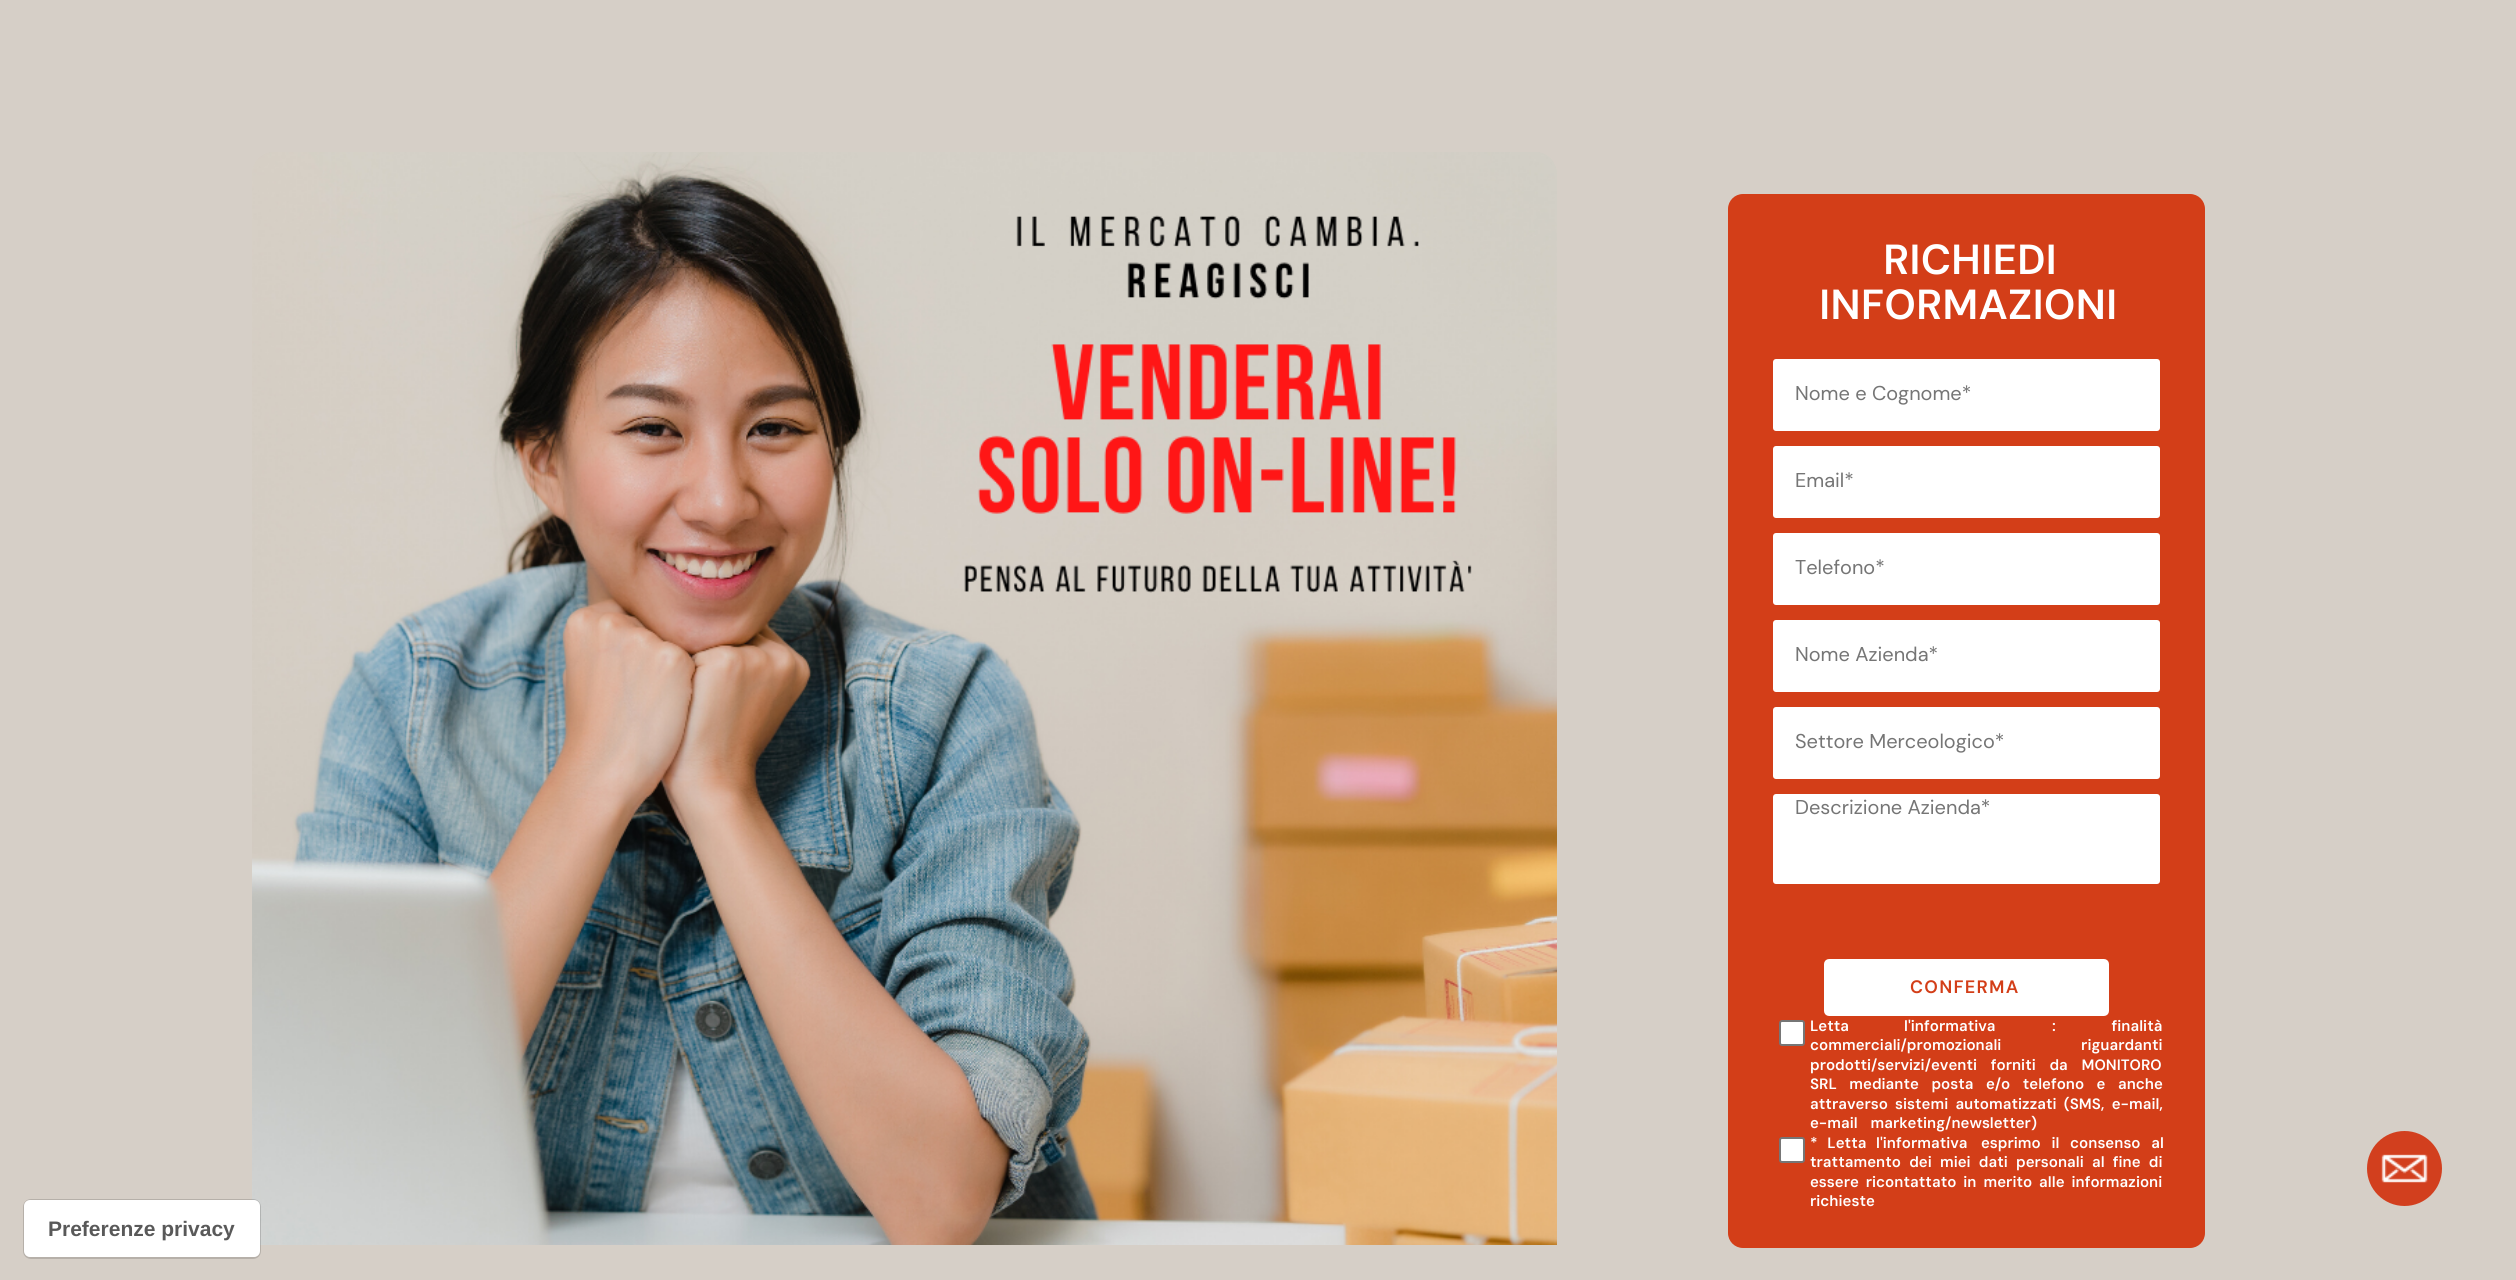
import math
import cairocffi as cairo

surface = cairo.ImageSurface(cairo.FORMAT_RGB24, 2516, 1280)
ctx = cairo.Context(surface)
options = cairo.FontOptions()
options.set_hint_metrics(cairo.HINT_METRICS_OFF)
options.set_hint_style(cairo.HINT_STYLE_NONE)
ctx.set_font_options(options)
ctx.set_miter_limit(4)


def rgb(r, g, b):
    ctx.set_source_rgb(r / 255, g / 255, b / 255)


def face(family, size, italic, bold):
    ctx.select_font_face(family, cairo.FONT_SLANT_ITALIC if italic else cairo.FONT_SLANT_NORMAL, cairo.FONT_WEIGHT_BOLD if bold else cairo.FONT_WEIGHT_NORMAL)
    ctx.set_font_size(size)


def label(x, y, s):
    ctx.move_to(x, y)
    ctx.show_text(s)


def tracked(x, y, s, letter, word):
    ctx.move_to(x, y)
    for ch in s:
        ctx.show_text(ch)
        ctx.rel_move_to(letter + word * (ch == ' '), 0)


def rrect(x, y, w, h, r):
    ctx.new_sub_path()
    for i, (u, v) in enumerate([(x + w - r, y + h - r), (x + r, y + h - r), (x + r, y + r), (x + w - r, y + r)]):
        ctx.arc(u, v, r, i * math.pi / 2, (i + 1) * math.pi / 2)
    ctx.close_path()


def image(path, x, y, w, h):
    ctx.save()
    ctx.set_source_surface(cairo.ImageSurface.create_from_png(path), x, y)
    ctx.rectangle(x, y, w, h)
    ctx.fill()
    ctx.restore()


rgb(214, 207, 199)
ctx.paint()
image('image0.png', 252, 152, 1305, 1093)
rgb(211, 62, 24)
rrect(1728, 194, 477, 1054, 15)
ctx.fill()
face('DM Sans SemiBold', 42, 0, 0)
rgb(255, 255, 255)
label(1883, 274, 'RICHIEDI')
label(1819, 319, 'INFORMAZIONI')
rrect(1773, 359, 387, 72, 3)
ctx.fill()
face('DM Sans', 20, 0, 0)
rgb(117, 117, 117)
label(1795, 400, 'Nome e Cognome*')
rgb(255, 255, 255)
rrect(1773, 446, 387, 72, 3)
ctx.fill()
rgb(117, 117, 117)
label(1795, 487, 'Email*')
rgb(255, 255, 255)
rrect(1773, 533, 387, 72, 3)
ctx.fill()
rgb(117, 117, 117)
label(1795, 574, 'Telefono*')
rgb(255, 255, 255)
rrect(1773, 620, 387, 72, 3)
ctx.fill()
rgb(117, 117, 117)
label(1795, 661, 'Nome Azienda*')
rgb(255, 255, 255)
rrect(1773, 707, 387, 72, 3)
ctx.fill()
rgb(117, 117, 117)
label(1795, 748, 'Settore Merceologico*')
rgb(255, 255, 255)
rrect(1773, 794, 387, 90, 3)
ctx.fill()
rgb(117, 117, 117)
label(1795, 814, 'Descrizione Azienda*')
rgb(255, 255, 255)
rrect(1825.5, 960.5, 282, 54, 3.5)
ctx.fill_preserve()
ctx.set_line_width(3)
ctx.stroke()
face('DM Sans SemiBold', 18, 0, 0)
rgb(211, 62, 24)
tracked(1910, 993, 'CONFERMA', 1.25, 0)
rgb(255, 255, 255)
rrect(1780, 1021, 24, 24, 2)
ctx.fill_preserve()
rgb(118, 118, 118)
ctx.set_line_width(2)
ctx.stroke()
face('DM Sans SemiBold', 15, 0, 0)
rgb(255, 255, 255)
label(1810, 1031, 'Letta')
label(1904, 1031, 'l\'informativa')
tracked(2052, 1031, ': finalità', 0, 52)
tracked(1810, 1050, 'commerciali/promozionali riguardanti', 0, 76)
tracked(1810, 1070, 'prodotti/servizi/eventi forniti da MONITORO', 0, 10)
tracked(1810, 1089, 'SRL mediante posta e/o telefono e anche', 0, 8.75)
tracked(1810, 1109, 'attraverso sistemi automatizzati (SMS, e-mail,', 0, 3.5)
tracked(1810, 1128, 'e-mail marketing/newsletter)', 0, 9)
rrect(1780, 1138, 24, 24, 2)
ctx.fill_preserve()
rgb(118, 118, 118)
ctx.stroke()
rgb(255, 255, 255)
tracked(1810, 1148, '* Letta', 0, 6)
label(1876, 1148, 'l\'informativa')
tracked(1981, 1148, 'esprimo il consenso al', 0, 7)
tracked(1810, 1167, 'trattamento dei miei dati personali al fine di', 0, 4.5)
tracked(1810, 1187, 'essere ricontattato in merito alle informazioni', 0, 3.25)
label(1810, 1206, 'richieste')
rgb(210, 63, 30)
ctx.new_path()
ctx.arc(2404.5, 1168.5, 37.5, 0, 2 * math.pi)
ctx.fill()
image('image1.png', 2381, 1154, 47, 29)
rrect(24, 1200, 236, 58, 7)
ctx.set_source_rgba(0, 0, 0, 0.15)
ctx.stroke()
rgb(255, 255, 255)
rrect(24, 1200, 236, 57, 6)
ctx.fill()
face('Liberation Sans', 21, 0, 1)
rgb(89, 89, 89)
label(48, 1236, 'Preferenze privacy')
surface.write_to_png('render.png')
